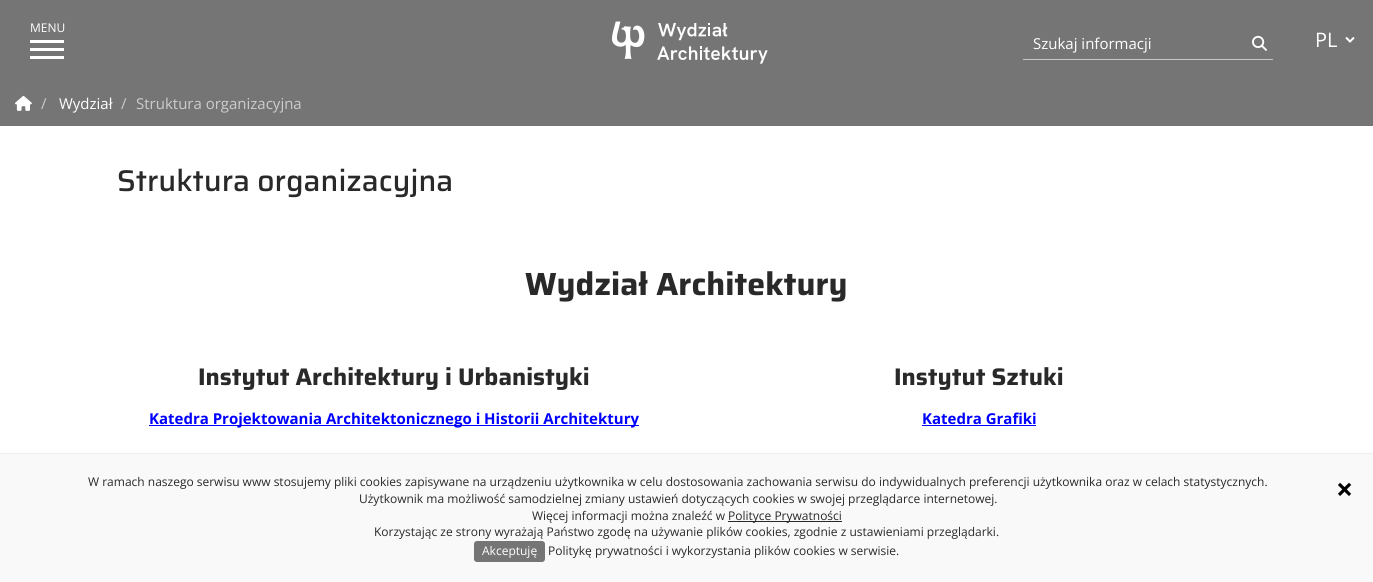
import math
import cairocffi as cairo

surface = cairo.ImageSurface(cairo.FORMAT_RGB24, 1373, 582)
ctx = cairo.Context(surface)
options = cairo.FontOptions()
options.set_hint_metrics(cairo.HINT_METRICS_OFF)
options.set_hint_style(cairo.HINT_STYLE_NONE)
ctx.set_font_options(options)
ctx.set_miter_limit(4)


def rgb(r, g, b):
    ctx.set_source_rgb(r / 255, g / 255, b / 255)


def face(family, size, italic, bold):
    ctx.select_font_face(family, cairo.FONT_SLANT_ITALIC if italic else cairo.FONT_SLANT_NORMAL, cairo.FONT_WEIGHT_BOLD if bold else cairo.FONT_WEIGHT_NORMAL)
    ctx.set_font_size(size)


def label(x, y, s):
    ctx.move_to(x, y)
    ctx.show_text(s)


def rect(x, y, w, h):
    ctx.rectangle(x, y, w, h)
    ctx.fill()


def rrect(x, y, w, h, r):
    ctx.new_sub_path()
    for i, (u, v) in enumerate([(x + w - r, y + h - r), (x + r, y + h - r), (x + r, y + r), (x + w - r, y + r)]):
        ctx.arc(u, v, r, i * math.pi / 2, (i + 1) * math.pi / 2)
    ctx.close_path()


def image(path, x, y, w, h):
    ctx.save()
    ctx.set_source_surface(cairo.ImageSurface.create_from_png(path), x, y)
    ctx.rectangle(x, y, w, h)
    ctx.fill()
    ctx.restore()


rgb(255, 255, 255)
ctx.paint()
rgb(117, 117, 117)
rect(0, 0, 1373, 126)
face('Open Sans', 12, 0, 0)
rgb(255, 255, 255)
label(30, 32, 'MENU')
rect(30, 40, 34, 3)
rect(30, 48, 34, 3)
rect(30, 56, 34, 3)
image('image0.png', 611, 21, 157, 43)
rgb(200, 200, 200)
rect(1023, 59, 250, 1)
face('Open Sans', 15, 0, 0)
rgb(255, 255, 255)
label(1033, 49, 'Szukaj informacji')
image('image1.png', 1252, 35, 15, 16)
ctx.new_path()
ctx.move_to(1346, 37.5)
ctx.line_to(1350, 41.5)
ctx.line_to(1354, 37.5)
ctx.stroke()
face('Open Sans', 20, 0, 0)
label(1315, 47, 'PL')
image('image2.png', 15, 95, 17, 16)
face('Open Sans', 15, 0, 0)
rgb(204, 204, 204)
label(41, 109, '/')
rgb(255, 255, 255)
label(59, 109, 'Wydział')
rgb(204, 204, 204)
label(121, 109, '/')
label(136, 109, 'Struktura organizacyjna')
face('Saira Medium', 30, 0, 0)
rgb(41, 41, 41)
label(117, 191, 'Struktura organizacyjna')
face('Saira', 32, 0, 1)
label(525, 295, 'Wydział Architektury')
face('Saira', 24, 0, 1)
label(198, 385, 'Instytut Architektury i Urbanistyki')
rgb(0, 0, 255)
rect(149, 425, 490, 1)
face('Open Sans', 15, 0, 1)
label(149, 424, 'Katedra Projektowania Architektonicznego i Historii Architektury')
face('Saira', 24, 0, 1)
rgb(41, 41, 41)
label(894, 385, 'Instytut Sztuki')
face('Open Sans', 15, 0, 1)
rgb(0, 0, 255)
label(922, 424, 'Katedra Grafiki')
rect(922, 425, 114, 1)
rgb(249, 249, 249)
rect(0, 454, 1373, 128)
rgb(239, 239, 239)
rect(0, 453, 1373, 1)
face('Open Sans', 12, 0, 0)
rgb(41, 41, 41)
label(88, 486, 'W ramach naszego serwisu www stosujemy pliki cookies zapisywane na urządzeniu użytkownika w celu dostosowania zachowania serwisu do indywidualnych preferencji użytkownika oraz w celach statystycznych.')
face('Open Sans', 30, 0, 1)
rgb(0, 0, 0)
label(1336, 500, '×')
face('Open Sans', 12, 0, 0)
rgb(41, 41, 41)
label(359, 503, 'Użytkownik ma możliwość samodzielnej zmiany ustawień dotyczących cookies w swojej przeglądarce internetowej.')
label(532, 520, 'Więcej informacji można znaleźć w')
rect(728, 521, 114, 1)
label(728, 520, 'Polityce Prywatności')
label(374, 536, 'Korzystając ze strony wyrażają Państwo zgodę na używanie plików cookies, zgodnie z ustawieniami przeglądarki.')
rgb(117, 117, 117)
rrect(474, 541, 71, 21, 3)
ctx.fill()
rgb(255, 255, 255)
label(482, 555, 'Akceptuję')
rgb(41, 41, 41)
label(548, 555, 'Politykę prywatności i wykorzystania plików cookies w serwisie.')
surface.write_to_png('render.png')
